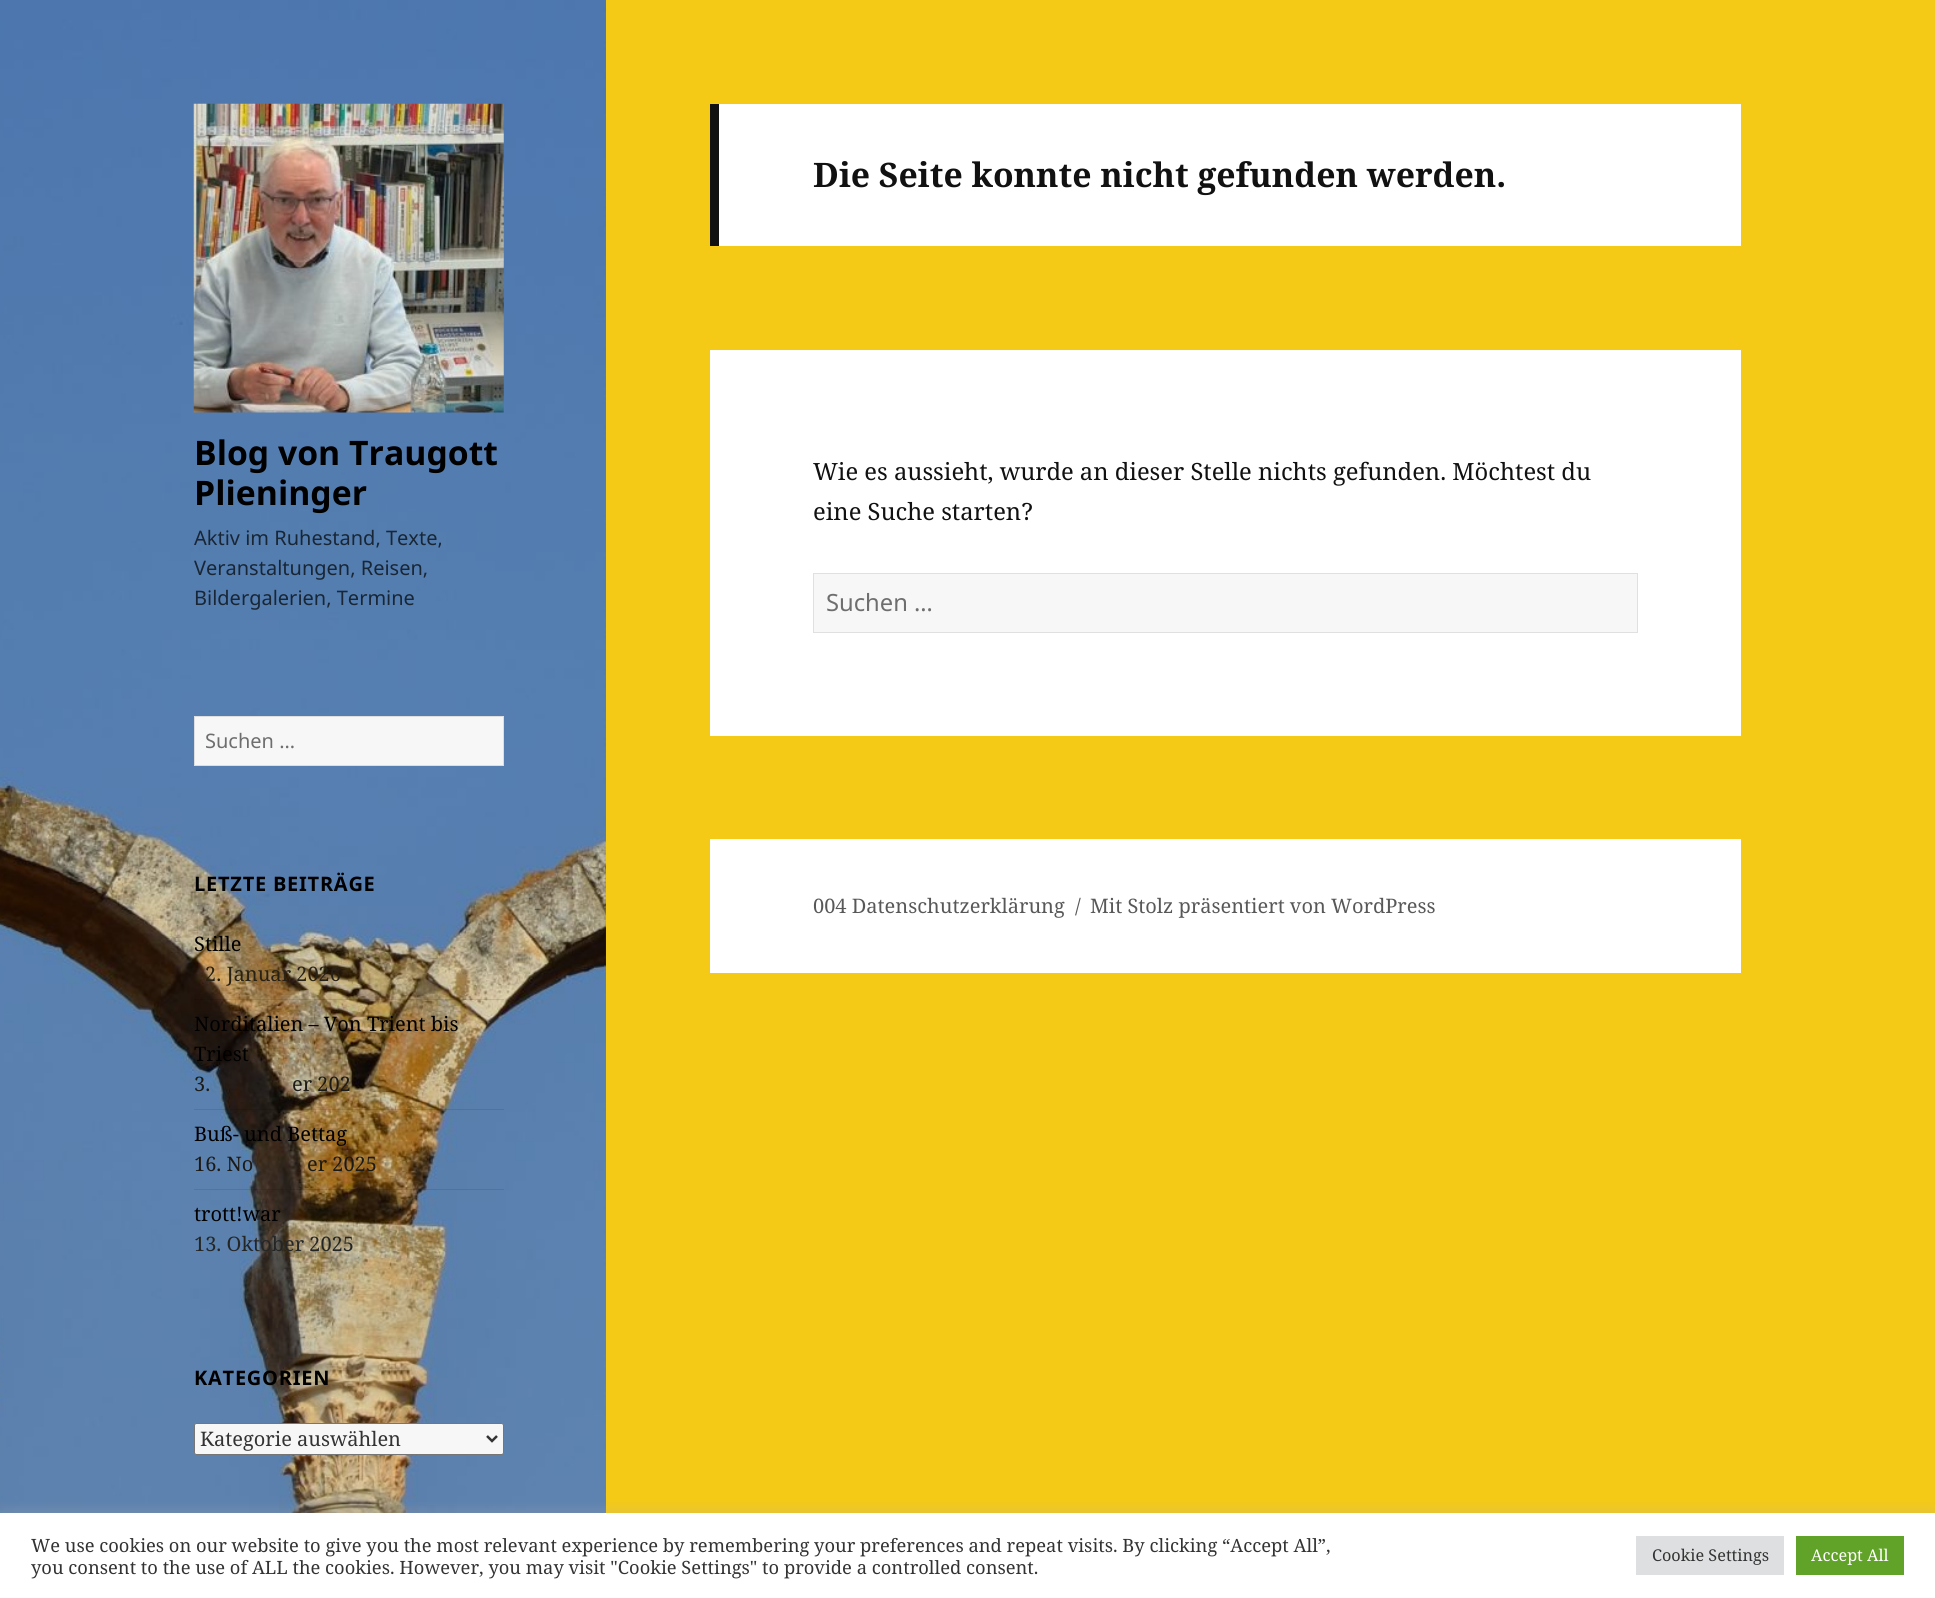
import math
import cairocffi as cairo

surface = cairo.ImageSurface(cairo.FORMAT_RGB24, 1935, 1598)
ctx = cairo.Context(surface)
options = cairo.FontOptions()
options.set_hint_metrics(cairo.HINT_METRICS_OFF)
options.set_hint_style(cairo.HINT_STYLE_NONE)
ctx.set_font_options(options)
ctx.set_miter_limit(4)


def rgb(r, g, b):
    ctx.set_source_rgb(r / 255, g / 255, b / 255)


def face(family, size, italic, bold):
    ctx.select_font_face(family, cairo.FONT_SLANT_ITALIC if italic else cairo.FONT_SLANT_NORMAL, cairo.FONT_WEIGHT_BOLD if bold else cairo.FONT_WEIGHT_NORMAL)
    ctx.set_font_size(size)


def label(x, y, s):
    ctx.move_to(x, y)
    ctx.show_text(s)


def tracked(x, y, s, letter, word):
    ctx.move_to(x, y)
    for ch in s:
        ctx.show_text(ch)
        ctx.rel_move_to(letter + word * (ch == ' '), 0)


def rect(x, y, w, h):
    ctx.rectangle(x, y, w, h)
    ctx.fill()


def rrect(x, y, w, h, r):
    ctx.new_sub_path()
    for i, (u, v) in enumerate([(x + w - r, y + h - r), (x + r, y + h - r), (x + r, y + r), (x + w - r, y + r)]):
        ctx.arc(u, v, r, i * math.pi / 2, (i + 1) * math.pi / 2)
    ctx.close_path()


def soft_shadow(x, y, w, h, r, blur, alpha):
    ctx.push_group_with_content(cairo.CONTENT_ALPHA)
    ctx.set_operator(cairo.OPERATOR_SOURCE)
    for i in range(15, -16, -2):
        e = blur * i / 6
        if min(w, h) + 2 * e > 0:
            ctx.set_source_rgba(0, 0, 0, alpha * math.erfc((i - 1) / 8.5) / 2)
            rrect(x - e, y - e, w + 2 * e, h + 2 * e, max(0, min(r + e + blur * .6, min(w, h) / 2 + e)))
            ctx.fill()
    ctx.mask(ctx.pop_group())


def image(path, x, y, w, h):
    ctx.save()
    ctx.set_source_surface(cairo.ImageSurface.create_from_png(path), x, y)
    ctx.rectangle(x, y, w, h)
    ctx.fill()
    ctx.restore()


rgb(244, 202, 22)
ctx.paint()
image('image0.png', 0, 0, 606, 1513)
rgb(255, 255, 255)
rect(719, 104, 1022, 142)
rgb(17, 17, 17)
rect(710, 104, 9, 142)
face('Noto Serif', 33.75, 0, 1)
label(813, 187, 'Die Seite konnte nicht gefunden werden.')
rgb(255, 255, 255)
rect(710, 350, 1031, 386)
face('Noto Serif', 23.75, 0, 0)
rgb(17, 17, 17)
label(813, 480, 'Wie es aussieht, wurde an dieser Stelle nichts gefunden. Möchtest du')
label(813, 520, 'eine Suche starten?')
rgb(247, 247, 247)
ctx.rectangle(813.5, 573.5, 824, 59)
ctx.fill_preserve()
rgb(224, 224, 224)
ctx.set_line_width(1)
ctx.stroke()
face('Noto Sans', 23.75, 0, 0)
rgb(110, 110, 110)
label(826, 611, 'Suchen …')
image('image1.png', 193, 103, 311, 310)
face('Noto Sans', 33.75, 0, 1)
rgb(0, 0, 0)
label(194, 465, 'Blog von Traugott')
label(194, 505, 'Plieninger')
face('Noto Sans', 20, 0, 0)
rgb(25, 38, 53)
label(194, 545, 'Aktiv im Ruhestand, Texte,')
label(194, 575, 'Veranstaltungen, Reisen,')
label(194, 605, 'Bildergalerien, Termine')
rgb(247, 247, 247)
ctx.rectangle(194.5, 716.5, 309, 49)
ctx.fill_preserve()
rgb(222, 222, 222)
ctx.stroke()
rgb(110, 110, 110)
label(205, 748, 'Suchen …')
face('Noto Sans', 20, 0, 1)
rgb(0, 0, 0)
tracked(194, 891, 'LETZTE BEITRÄGE', 0.75, 0)
face('Noto Serif', 20, 0, 0)
label(194, 951, 'Stille')
rgb(40, 33, 21)
label(205, 981, '2. Januar 2026')
ctx.set_source_rgba(0, 0, 0, 0.1)
rect(194, 999, 310, 1)
rgb(0, 0, 0)
label(194, 1031, 'Norditalien – Von Trient bis')
label(194, 1061, 'Triest')
rgb(28, 26, 22)
label(194, 1091, '3.')
label(292, 1091, 'er 202')
ctx.set_source_rgba(0, 0, 0, 0.1)
rect(194, 1109, 310, 1)
rgb(0, 0, 0)
label(194, 1141, 'Buß- und Bettag')
rgb(28, 26, 22)
label(194, 1171, '16. No')
label(307, 1171, 'er 2025')
ctx.set_source_rgba(0, 0, 0, 0.1)
rect(194, 1189, 310, 1)
rgb(0, 0, 0)
label(194, 1221, 'trott!war')
rgb(36, 38, 38)
label(194, 1251, '13. Oktober 2025')
face('Noto Sans', 20, 0, 1)
rgb(0, 0, 0)
tracked(194, 1385, 'KATEGORIEN', 0.75, 0)
rgb(247, 247, 247)
rrect(194.5, 1423.5, 309, 31, 2)
ctx.fill_preserve()
rgb(118, 118, 118)
ctx.stroke()
ctx.new_path()
ctx.move_to(487, 1436)
ctx.line_to(492, 1441)
ctx.line_to(497, 1436)
rgb(51, 51, 51)
ctx.set_line_width(2.5)
ctx.stroke()
face('Noto Serif', 20, 0, 0)
label(200, 1446, 'Kategorie auswählen')
rgb(255, 255, 255)
rect(710, 839, 1031, 134)
rgb(88, 88, 88)
label(813, 913, '004 Datenschutzerklärung')
label(1075, 913, '/')
label(1090, 913, 'Mit Stolz präsentiert von WordPress')
rgb(172, 171, 171)
soft_shadow(0, 1511, 1935, 87, 0, 6, 0.3)
rgb(255, 255, 255)
rect(0, 1513, 1935, 85)
face('Noto Serif', 18.33, 0, 0)
rgb(51, 51, 51)
label(31, 1552, 'We use cookies on our website to give you the most relevant experience by remembering your preferences and repeat visits. By clicking “Accept All”,')
label(31, 1574, 'you consent to the use of ALL the cookies. However, you may visit "Cookie Settings" to provide a controlled consent.')
rgb(222, 223, 224)
rect(1636, 1536, 148, 39)
face('Noto Serif', 16.25, 0, 0)
rgb(51, 51, 51)
label(1652, 1561, 'Cookie Settings')
rgb(97, 162, 41)
rect(1796, 1536, 108, 39)
rgb(255, 255, 255)
label(1811, 1561, 'Accept All')
surface.write_to_png('render.png')
